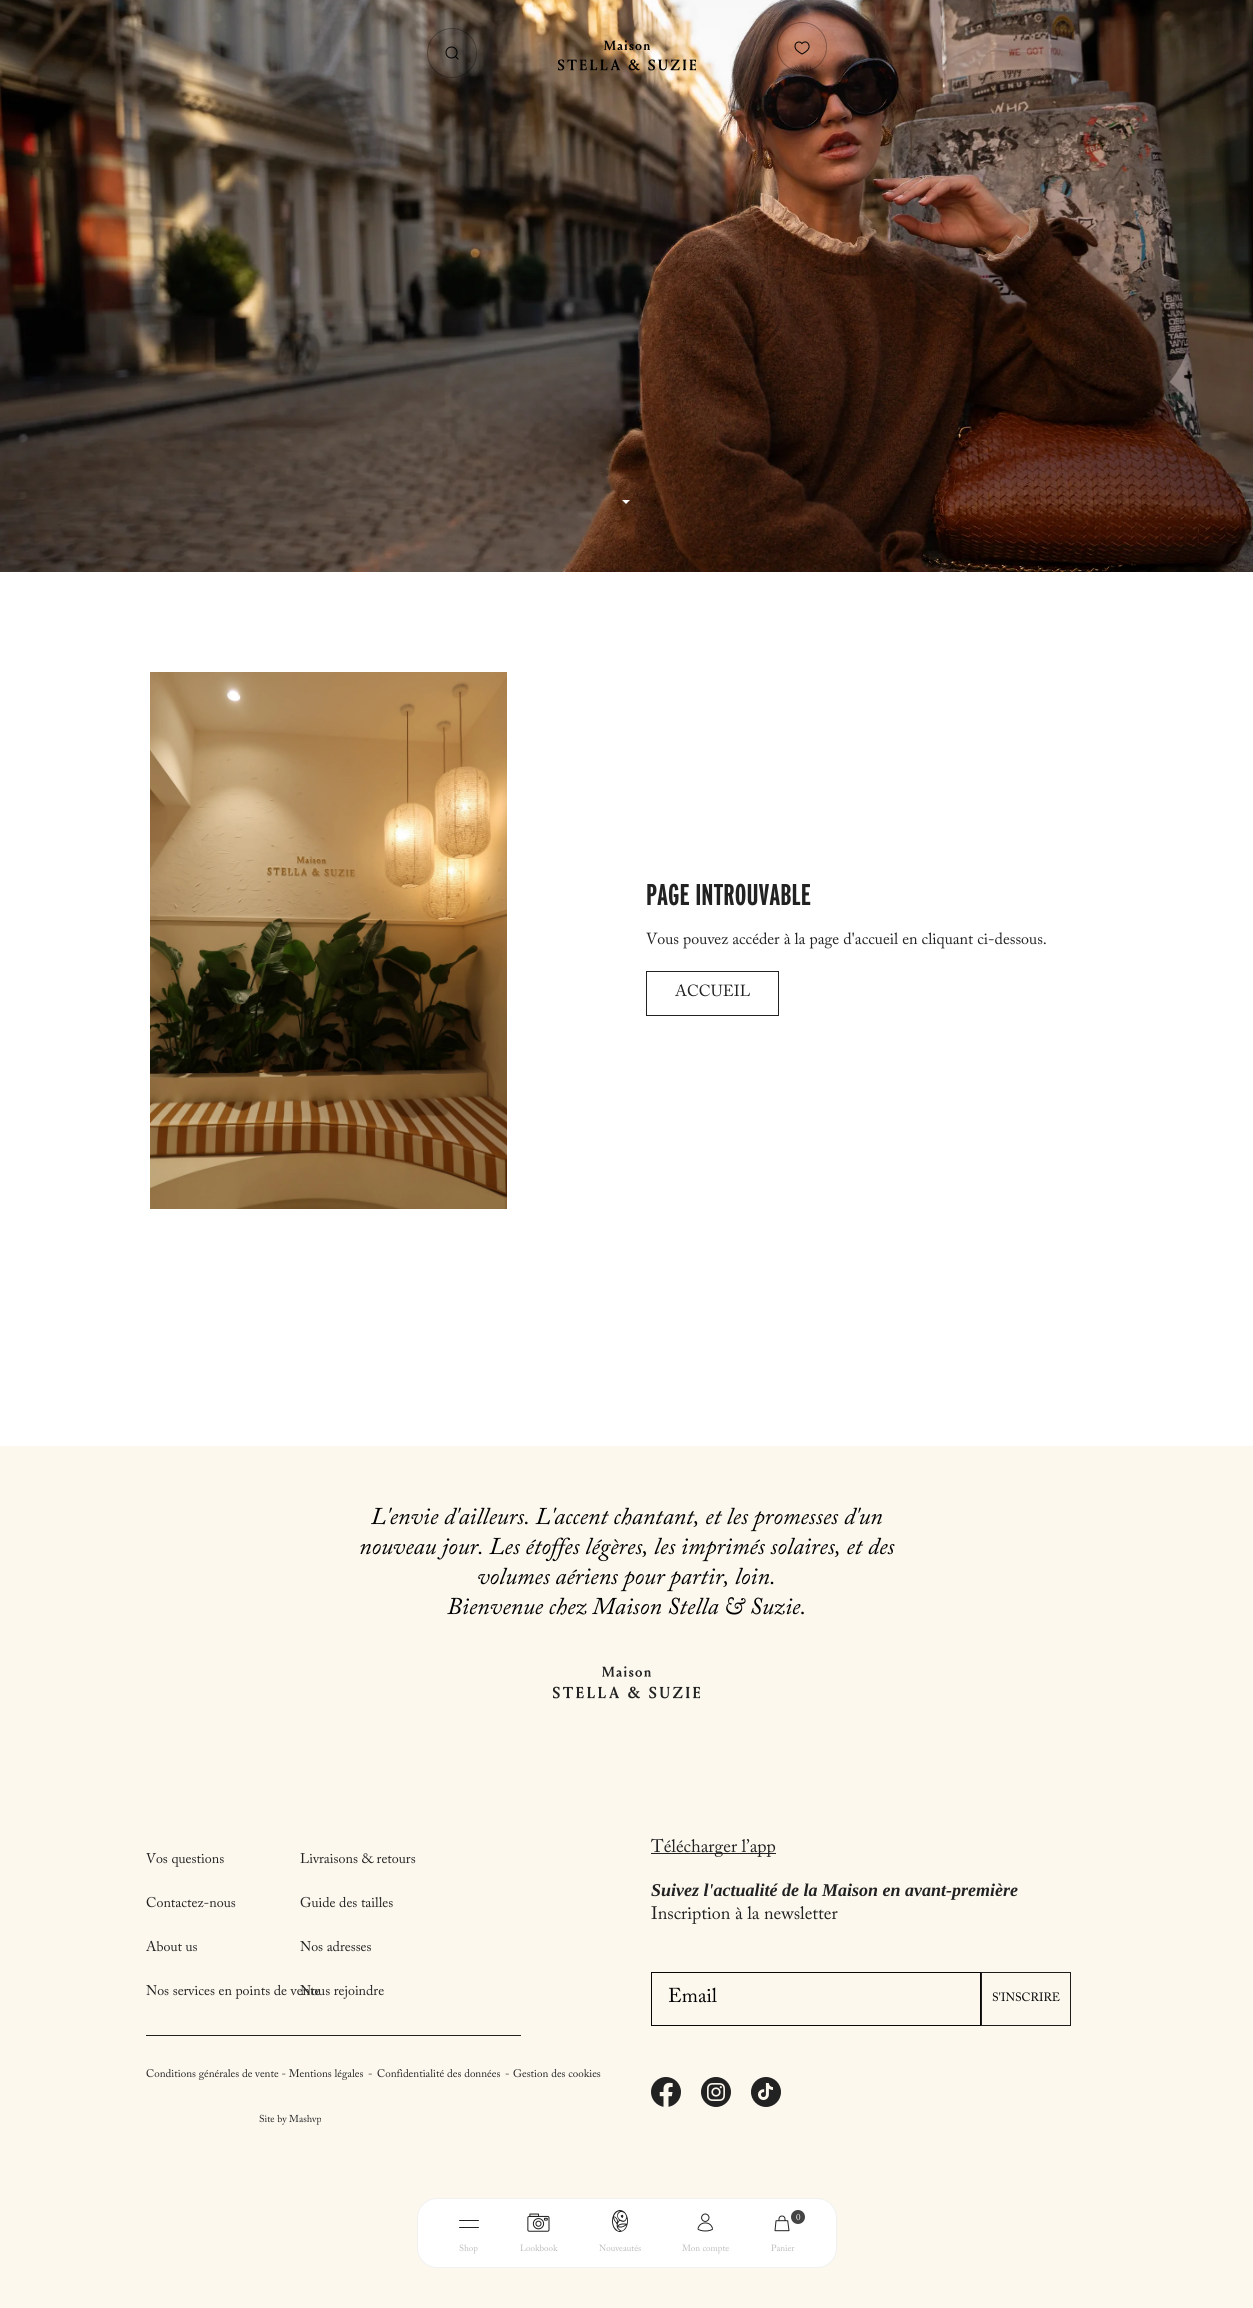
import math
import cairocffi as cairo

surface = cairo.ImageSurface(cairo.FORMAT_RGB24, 1253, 2308)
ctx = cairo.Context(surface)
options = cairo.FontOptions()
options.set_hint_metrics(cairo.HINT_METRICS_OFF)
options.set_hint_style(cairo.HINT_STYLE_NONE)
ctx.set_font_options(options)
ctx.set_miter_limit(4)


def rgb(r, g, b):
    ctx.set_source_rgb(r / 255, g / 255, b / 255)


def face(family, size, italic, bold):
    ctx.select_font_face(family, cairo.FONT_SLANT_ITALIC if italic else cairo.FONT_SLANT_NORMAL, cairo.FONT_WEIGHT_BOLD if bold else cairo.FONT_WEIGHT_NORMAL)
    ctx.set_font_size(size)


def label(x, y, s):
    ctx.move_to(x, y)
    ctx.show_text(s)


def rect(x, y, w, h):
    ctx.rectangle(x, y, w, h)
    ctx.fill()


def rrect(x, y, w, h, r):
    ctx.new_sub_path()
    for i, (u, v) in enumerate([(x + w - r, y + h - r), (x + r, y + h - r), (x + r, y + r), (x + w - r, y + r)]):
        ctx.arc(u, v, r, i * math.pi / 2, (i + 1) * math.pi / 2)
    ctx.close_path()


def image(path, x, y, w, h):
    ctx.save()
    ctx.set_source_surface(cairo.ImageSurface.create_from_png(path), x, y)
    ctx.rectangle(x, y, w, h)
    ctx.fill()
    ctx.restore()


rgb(255, 255, 255)
ctx.paint()
image('image0.png', 0, 0, 1253, 572)
rgb(255, 255, 255)
ctx.new_path()
ctx.move_to(622, 500)
ctx.line_to(626, 504)
ctx.line_to(630, 500)
ctx.close_path()
ctx.fill()
image('image1.png', 150, 672, 357, 537)
face('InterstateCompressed', 30, 0, 1)
rgb(34, 34, 34)
label(646, 905, 'PAGE INTROUVABLE')
face('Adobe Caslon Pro', 16, 0, 0)
label(646, 944, 'Vous pouvez accéder à la page d\'accueil en cliquant ci-dessous.')
ctx.rectangle(646.5, 971.5, 132, 44)
ctx.set_line_width(1)
ctx.stroke()
label(675, 996, 'ACCUEIL')
rgb(252, 248, 238)
rect(0, 1446, 1253, 862)
face('Adobe Caslon Pro', 24, 1, 0)
rgb(0, 0, 0)
label(371, 1524, 'L\'envie d\'ailleurs. L\'accent chantant, et les promesses d\'un')
label(359, 1554, 'nouveau jour. Les étoffes légères, les imprimés solaires, et des')
label(477, 1584, 'volumes aériens pour partir, loin.')
label(447, 1614, 'Bienvenue chez Maison Stella & Suzie.')
image('image2.png', 553, 1666, 147, 33)
face('Adobe Caslon Pro', 14, 0, 0)
rgb(34, 34, 34)
label(146, 1863, 'Vos questions')
label(300, 1863, 'Livraisons & retours')
label(146, 1907, 'Contactez-nous')
label(300, 1907, 'Guide des tailles')
label(146, 1951, 'About us')
label(300, 1951, 'Nos adresses')
label(146, 1995, 'Nos services en points de vente')
label(300, 1995, 'Nous rejoindre')
rect(146, 2035, 375, 1)
face('Adobe Caslon Pro', 11, 0, 0)
label(146, 2077, 'Conditions générales de vente - Mentions légales')
label(368, 2077, '-')
label(377, 2077, 'Confidentialité des données')
label(505, 2077, '-')
label(513, 2077, 'Gestion des cookies')
face('Adobe Caslon Pro', 10, 0, 0)
label(259, 2122, 'Site by Mashvp')
rect(651, 1853, 125, 1)
face('Adobe Caslon Pro', 18, 0, 0)
label(651, 1852, 'Télécharger l’app')
face('Liberation Serif', 18, 1, 1)
label(651, 1896, 'Suivez l\'actualité de la Maison en avant-première')
face('Adobe Caslon Pro', 18, 0, 0)
label(651, 1919, 'Inscription à la newsletter')
ctx.rectangle(651.5, 1972.5, 329, 53)
rgb(8, 8, 8)
ctx.stroke()
face('Adobe Caslon Pro', 20, 0, 0)
rgb(0, 0, 0)
label(668, 2002, 'Email')
ctx.rectangle(981.5, 1972.5, 89, 53)
rgb(29, 29, 29)
ctx.stroke()
face('Adobe Caslon Pro', 12, 0, 0)
rgb(0, 0, 0)
label(992, 2001, 'S\'INSCRIRE')
image('image3.png', 651, 2077, 30, 30)
image('image4.png', 701, 2077, 30, 30)
image('image5.png', 751, 2077, 30, 30)
image('image6.png', 427, 28, 50, 50)
image('image7.png', 558, 40, 138, 31)
ctx.arc(802, 47, 24.5, 0, 2 * math.pi)
ctx.set_source_rgba(0, 0, 0, 0.3)
ctx.stroke()
ctx.new_path()
ctx.move_to(799, 42)
ctx.curve_to(796.5, 42, 795, 44, 795, 46)
ctx.curve_to(795, 50, 798, 51.5, 802, 54)
ctx.curve_to(804, 53, 806.5, 51.5, 808, 49.5)
ctx.curve_to(811.5, 45, 806, 39, 802, 43.5)
ctx.curve_to(801.5, 43, 800.5, 42, 799, 42)
ctx.close_path()
rgb(0, 0, 0)
ctx.stroke()
rgb(255, 255, 255)
rrect(417.5, 2198.5, 419, 69, 19.5)
ctx.fill_preserve()
rgb(241, 241, 241)
ctx.stroke()
rgb(34, 34, 34)
rrect(459, 2220, 20, 1, 0.5)
ctx.fill()
rrect(459, 2227, 20, 1, 0.5)
ctx.fill()
face('Adobe Caslon Pro', 9, 0, 0)
rgb(187, 187, 187)
label(459, 2251, 'Shop')
image('image8.png', 527, 2213, 23, 19)
label(520, 2251, 'Lookbook')
image('image9.png', 612, 2210, 16, 22)
label(599, 2251, 'Nouveautés')
image('image10.png', 697, 2213, 16, 19)
label(682, 2251, 'Mon compte')
image('image11.png', 774, 2215, 16, 17)
rgb(68, 68, 68)
ctx.arc(798, 2217, 7, 0, 2 * math.pi)
ctx.fill()
rgb(255, 255, 255)
label(796, 2220, '0')
rgb(187, 187, 187)
label(771, 2251, 'Panier')
surface.write_to_png('render.png')
